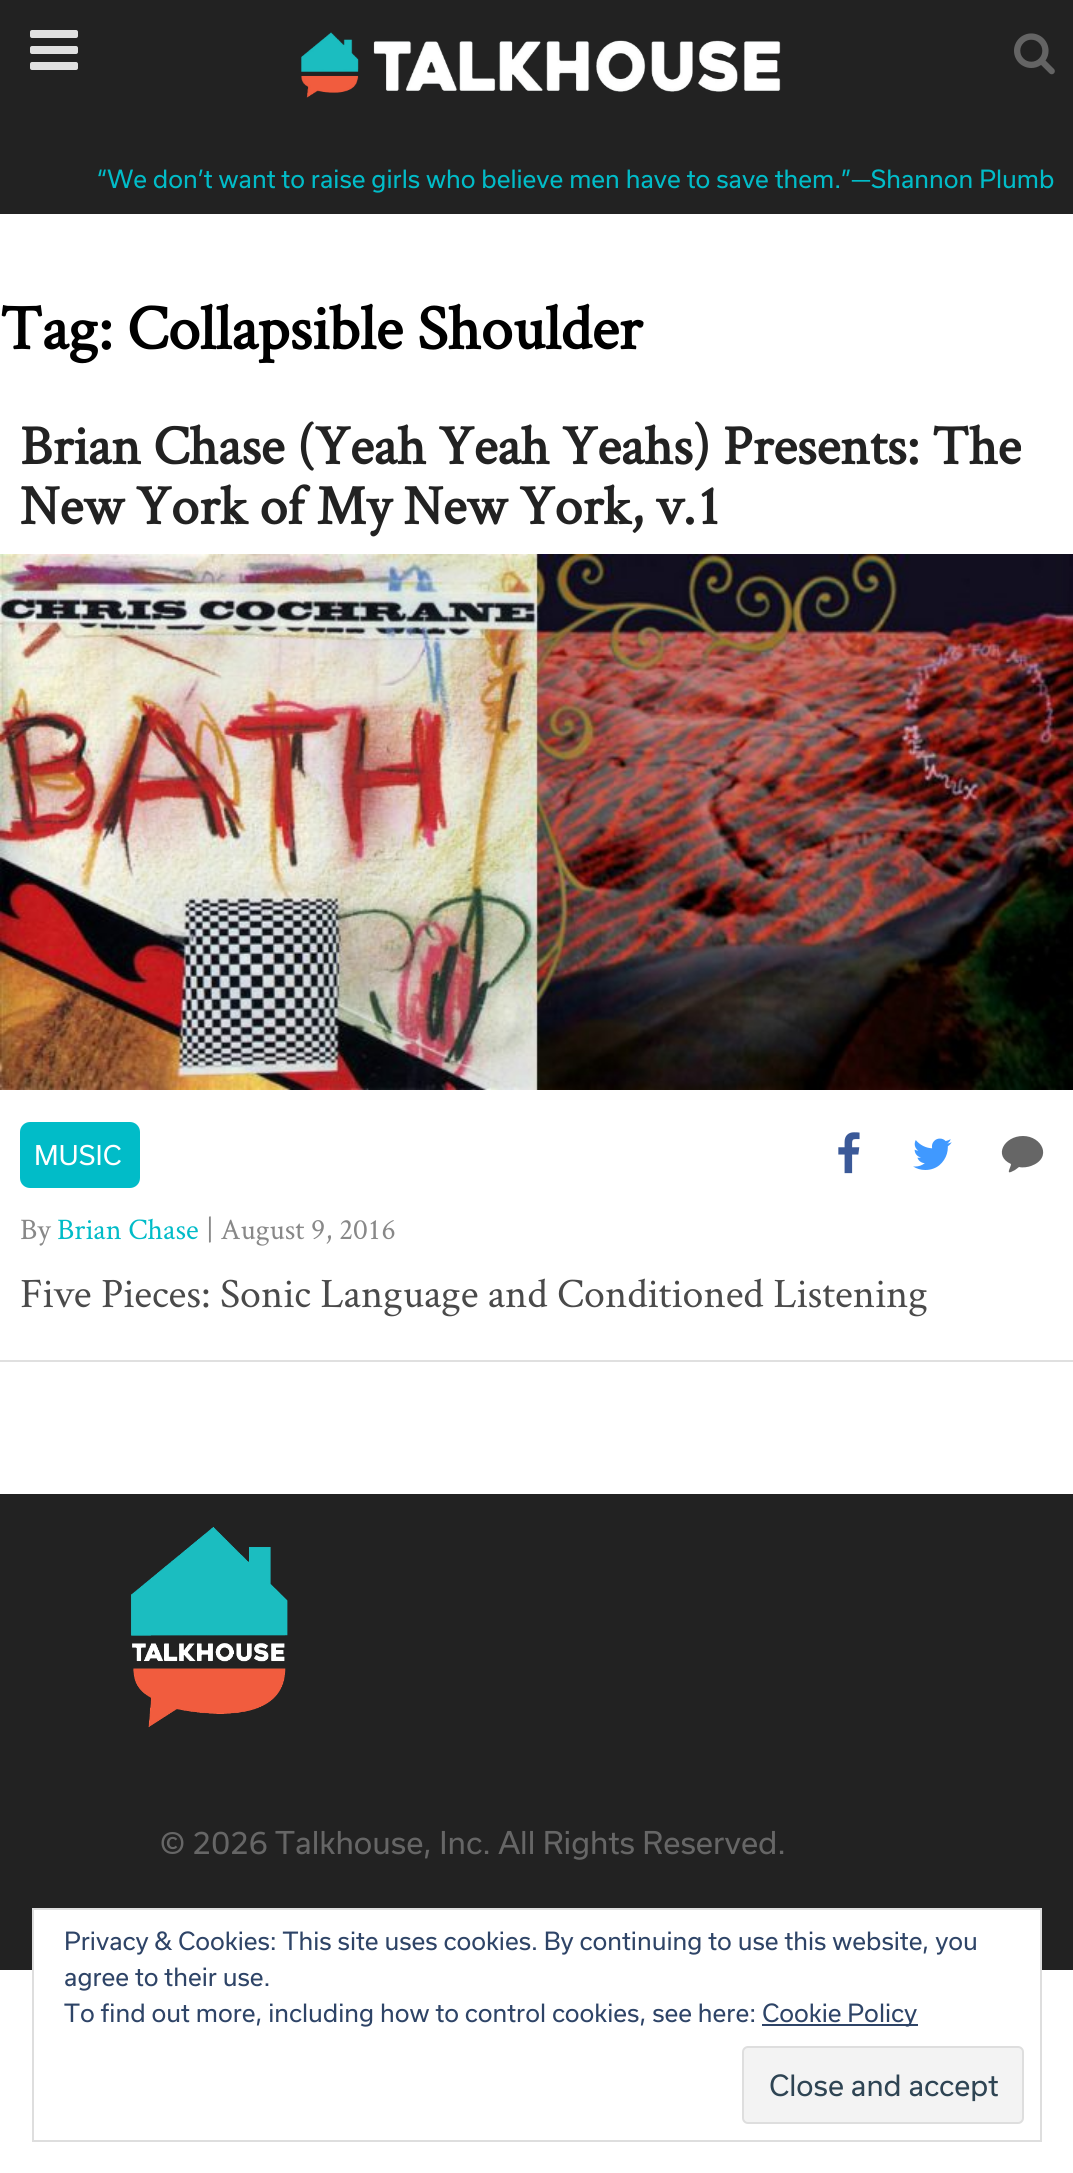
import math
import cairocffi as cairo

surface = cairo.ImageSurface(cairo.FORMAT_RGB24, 1073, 2173)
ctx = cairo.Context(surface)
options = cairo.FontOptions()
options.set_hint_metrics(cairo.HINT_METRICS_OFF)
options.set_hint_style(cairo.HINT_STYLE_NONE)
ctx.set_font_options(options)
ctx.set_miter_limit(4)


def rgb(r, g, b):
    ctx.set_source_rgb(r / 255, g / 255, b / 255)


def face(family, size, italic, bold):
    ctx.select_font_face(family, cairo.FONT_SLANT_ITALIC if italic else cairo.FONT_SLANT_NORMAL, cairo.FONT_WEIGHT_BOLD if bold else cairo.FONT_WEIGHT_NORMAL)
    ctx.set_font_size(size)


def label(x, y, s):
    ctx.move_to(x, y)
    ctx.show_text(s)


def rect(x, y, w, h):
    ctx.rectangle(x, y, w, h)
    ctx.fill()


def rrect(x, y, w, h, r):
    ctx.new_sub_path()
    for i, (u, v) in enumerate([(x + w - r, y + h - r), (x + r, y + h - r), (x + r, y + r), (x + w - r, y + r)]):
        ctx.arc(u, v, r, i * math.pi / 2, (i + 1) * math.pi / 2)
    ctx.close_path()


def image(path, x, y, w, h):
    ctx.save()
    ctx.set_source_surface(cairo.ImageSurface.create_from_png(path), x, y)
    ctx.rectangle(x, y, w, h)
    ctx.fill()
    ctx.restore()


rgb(255, 255, 255)
ctx.paint()
rgb(34, 34, 34)
rect(0, 0, 1073, 214)
image('image0.png', 30, 30, 48, 40)
image('image1.png', 301, 32, 480, 66)
image('image2.png', 1014, 33, 41, 42)
face('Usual', 24, 0, 0)
rgb(1, 188, 200)
label(97, 188, '“We don’t want to raise girls who believe men have to save them.”—Shannon Plumb')
face('Crimson Text', 64, 0, 1)
rgb(0, 0, 0)
label(0, 349, 'Tag: Collapsible Shoulder')
rgb(224, 224, 224)
rect(0, 1360, 1073, 2)
face('Crimson Text', 56, 0, 1)
rgb(34, 34, 34)
label(20, 464, 'Brian Chase (Yeah Yeah Yeahs) Presents: The')
label(20, 524, 'New York of My New York, v.1')
image('image3.png', 0, 554, 1073, 536)
rgb(1, 188, 200)
rrect(20, 1122, 120, 66, 10)
ctx.fill()
face('Usual', 26, 0, 0)
rgb(255, 255, 255)
label(34, 1165, 'MUSIC')
image('image4.png', 838, 1132, 22, 42)
image('image5.png', 913, 1138, 39, 32)
rgb(102, 102, 102)
ctx.new_path()
ctx.move_to(1023, 1136)
ctx.curve_to(1004, 1136, 993, 1156, 1011, 1164)
ctx.curve_to(1011, 1167, 1006, 1174, 1011, 1172)
ctx.line_to(1015, 1170)
ctx.line_to(1019, 1167)
ctx.curve_to(1023, 1168, 1028, 1167, 1031, 1166)
ctx.curve_to(1053, 1158, 1042, 1136, 1023, 1136)
ctx.close_path()
ctx.fill()
face('Crimson Text', 30, 0, 0)
rgb(136, 136, 136)
label(20, 1239, 'By')
rgb(1, 188, 200)
label(57, 1239, 'Brian Chase')
rgb(136, 136, 136)
label(206, 1239, '| August 9, 2016')
face('Crimson Text', 42, 0, 0)
rgb(74, 74, 74)
label(20, 1307, 'Five Pieces: Sonic Language and Conditioned Listening')
rgb(34, 34, 34)
rect(0, 1494, 1073, 476)
image('image6.png', 131, 1527, 157, 201)
face('Usual', 30, 0, 0)
rgb(102, 102, 102)
label(160, 1854, '© 2026 Talkhouse, Inc. All Rights Reserved.')
rgb(255, 255, 255)
rect(34, 1910, 1006, 60)
ctx.rectangle(33, 1909, 1008, 232)
rgb(222, 222, 222)
ctx.stroke()
face('Usual', 24, 0, 0)
rgb(46, 68, 103)
label(64, 1950, 'Privacy & Cookies: This site uses cookies. By continuing to use this website, you')
label(64, 1986, 'agree to their use.')
label(64, 2022, 'To find out more, including how to control cookies, see here:')
rect(762, 2024, 156, 2)
label(762, 2022, 'Cookie Policy')
rgb(243, 243, 243)
rrect(743, 2047, 280, 76, 5)
ctx.fill_preserve()
rgb(222, 222, 222)
ctx.stroke()
face('Usual', 28, 0, 0)
rgb(46, 68, 83)
label(769, 2096, 'Close and accept')
surface.write_to_png('render.png')
